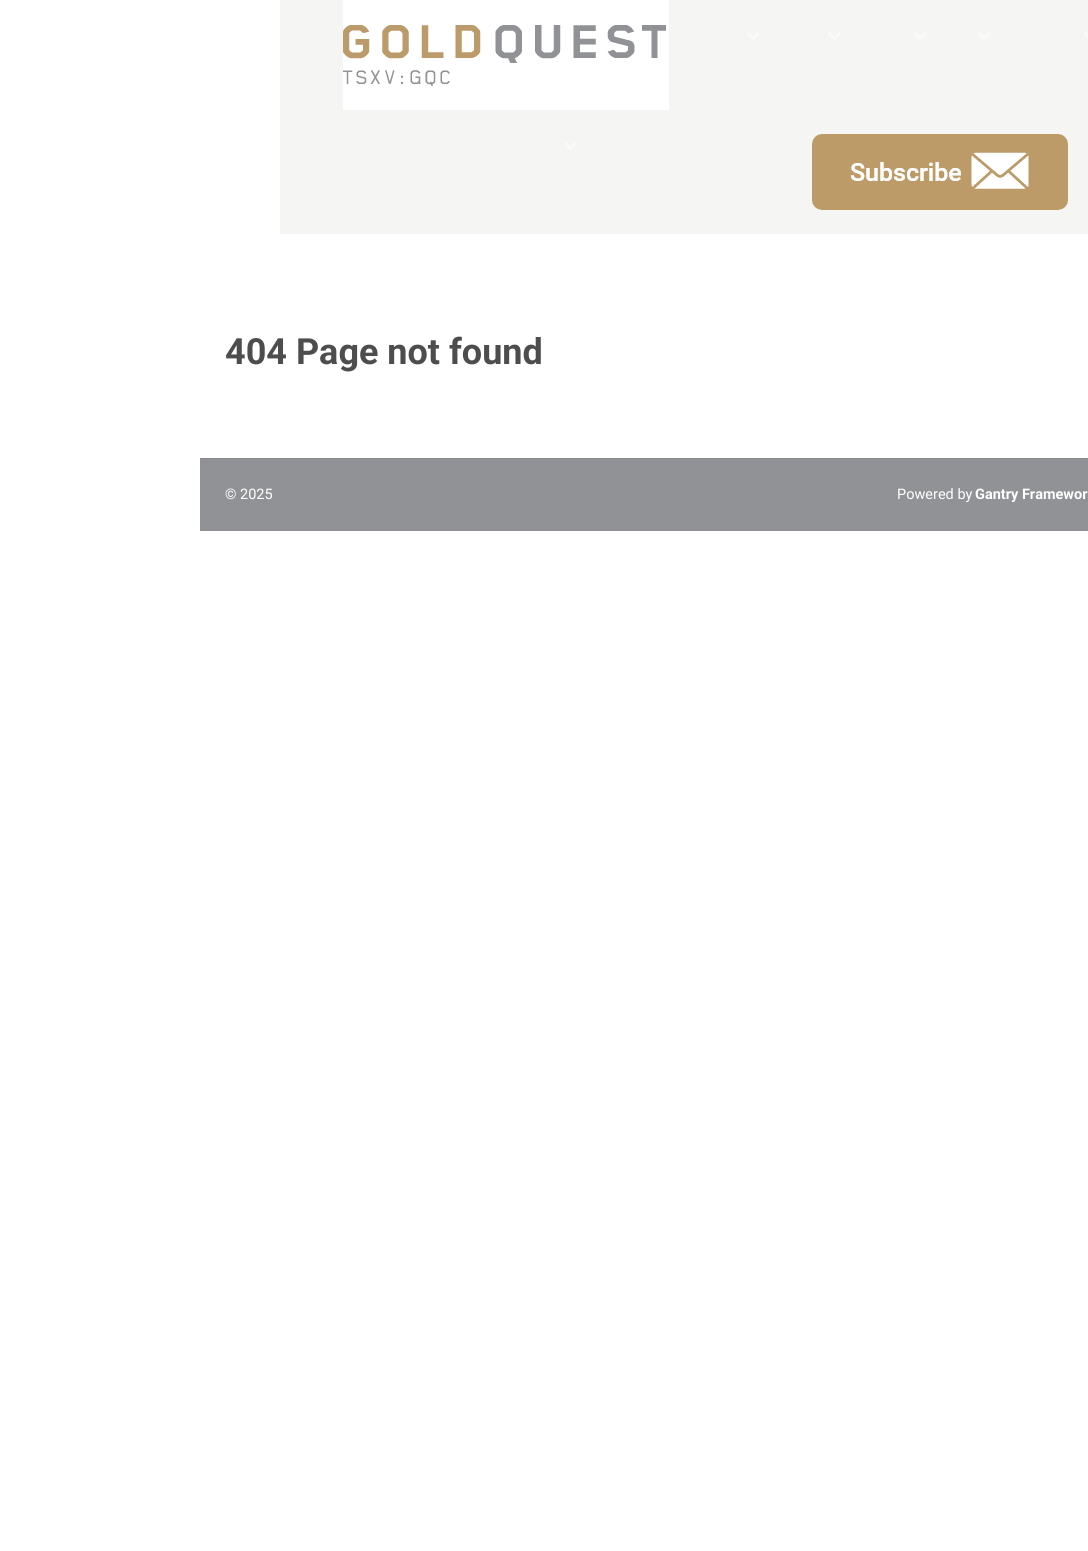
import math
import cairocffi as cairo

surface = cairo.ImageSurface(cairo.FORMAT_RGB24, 1088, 1551)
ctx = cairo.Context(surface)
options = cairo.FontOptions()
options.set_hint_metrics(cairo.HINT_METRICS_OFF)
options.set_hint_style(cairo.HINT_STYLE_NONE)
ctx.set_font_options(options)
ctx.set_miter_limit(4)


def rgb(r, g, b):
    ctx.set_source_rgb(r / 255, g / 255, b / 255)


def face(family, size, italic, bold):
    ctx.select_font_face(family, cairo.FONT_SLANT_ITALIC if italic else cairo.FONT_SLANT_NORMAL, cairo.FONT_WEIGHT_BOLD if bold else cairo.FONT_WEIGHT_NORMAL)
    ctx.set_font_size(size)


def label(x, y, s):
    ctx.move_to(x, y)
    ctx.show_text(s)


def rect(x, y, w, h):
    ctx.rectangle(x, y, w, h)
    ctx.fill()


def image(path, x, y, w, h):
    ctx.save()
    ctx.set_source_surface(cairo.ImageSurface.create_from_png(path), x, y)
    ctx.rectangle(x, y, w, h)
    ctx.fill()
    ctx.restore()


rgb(255, 255, 255)
ctx.paint()
rgb(245, 245, 244)
rect(280, 0, 808, 234)
rgb(255, 255, 255)
rect(343, 0, 326, 110)
image('image0.png', 343, 25, 323, 61)
image('image1.png', 747, 32, 12, 8)
image('image1.png', 828, 32, 12, 8)
image('image1.png', 914, 32, 12, 8)
image('image1.png', 978, 32, 12, 8)
image('image2.png', 1084, 32, 4, 6)
image('image1.png', 564, 142, 12, 8)
image('image3.png', 812, 134, 256, 76)
face('Roboto', 36, 0, 1)
rgb(77, 77, 77)
label(225, 364, '404 Page not found')
rgb(145, 146, 149)
rect(200, 459, 888, 72)
rgb(138, 139, 142)
rect(200, 458, 888, 1)
face('Roboto', 14.5, 0, 0)
rgb(255, 255, 255)
label(225, 499, '© 2025')
label(897, 499, 'Powered by')
face('Roboto', 14.5, 0, 1)
label(975, 499, 'Gantry Framewor')
surface.write_to_png('render.png')
